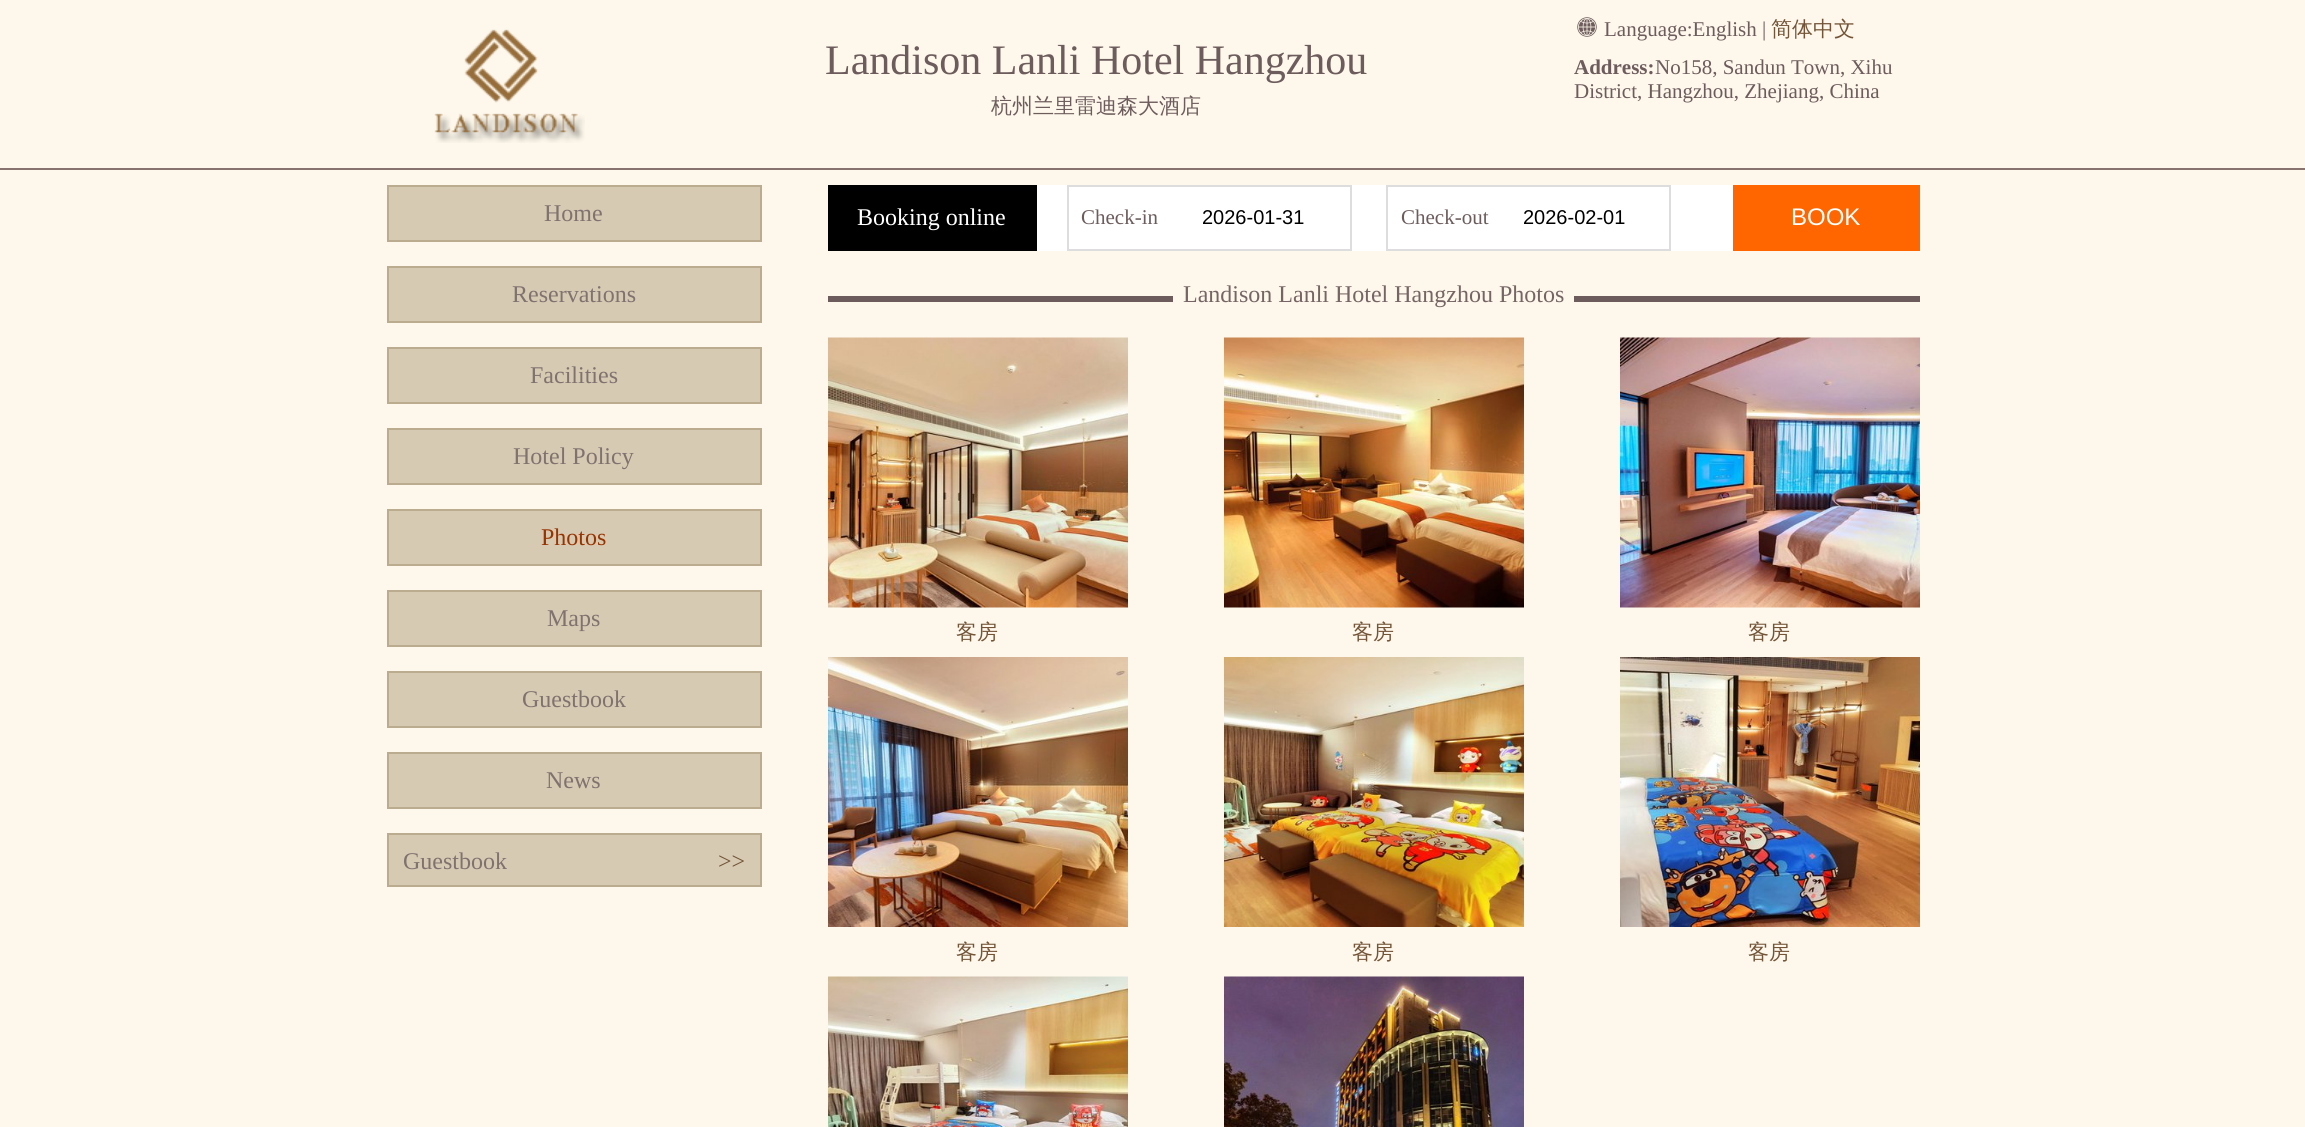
import math
import cairocffi as cairo

surface = cairo.ImageSurface(cairo.FORMAT_RGB24, 2305, 1127)
ctx = cairo.Context(surface)
options = cairo.FontOptions()
options.set_hint_metrics(cairo.HINT_METRICS_OFF)
options.set_hint_style(cairo.HINT_STYLE_NONE)
ctx.set_font_options(options)
ctx.set_miter_limit(4)


def rgb(r, g, b):
    ctx.set_source_rgb(r / 255, g / 255, b / 255)


def face(family, size, italic, bold):
    ctx.select_font_face(family, cairo.FONT_SLANT_ITALIC if italic else cairo.FONT_SLANT_NORMAL, cairo.FONT_WEIGHT_BOLD if bold else cairo.FONT_WEIGHT_NORMAL)
    ctx.set_font_size(size)


def label(x, y, s):
    ctx.move_to(x, y)
    ctx.show_text(s)


def rect(x, y, w, h):
    ctx.rectangle(x, y, w, h)
    ctx.fill()


def image(path, x, y, w, h):
    ctx.save()
    ctx.set_source_surface(cairo.ImageSurface.create_from_png(path), x, y)
    ctx.rectangle(x, y, w, h)
    ctx.fill()
    ctx.restore()


rgb(254, 248, 236)
ctx.paint()
rgb(136, 115, 112)
rect(0, 168, 2305, 2)
image('image0.png', 434, 29, 151, 114)
face('Liberation Serif', 42, 0, 0)
rgb(108, 92, 92)
label(825, 74, 'Landison Lanli Hotel Hangzhou')
face('WenQuanYi Zen Hei Medium', 21, 0, 0)
label(991, 113, '杭州兰里雷迪森大酒店')
image('image1.png', 1577, 17, 20, 20)
face('Liberation Serif', 21, 0, 0)
label(1604, 36, 'Language:English |')
face('WenQuanYi Zen Hei Medium', 21, 0, 0)
rgb(115, 84, 55)
label(1771, 36, '简体中文')
face('Liberation Serif', 21, 0, 1)
rgb(108, 92, 92)
label(1574, 74, 'Address:')
face('Liberation Serif', 21, 0, 0)
label(1655, 74, 'No158, Sandun Town, Xihu')
label(1574, 98, 'District, Hangzhou, Zhejiang, China')
rgb(214, 202, 178)
ctx.rectangle(388, 186, 373, 55)
ctx.fill_preserve()
rgb(187, 172, 143)
ctx.stroke()
face('Liberation Serif', 24, 0, 0)
rgb(128, 114, 111)
label(544, 221, 'Home')
rgb(214, 202, 178)
ctx.rectangle(388, 267, 373, 55)
ctx.fill_preserve()
rgb(187, 172, 143)
ctx.stroke()
rgb(128, 114, 111)
label(512, 302, 'Reservations')
rgb(214, 202, 178)
ctx.rectangle(388, 348, 373, 55)
ctx.fill_preserve()
rgb(187, 172, 143)
ctx.stroke()
rgb(128, 114, 111)
label(530, 383, 'Facilities')
rgb(214, 202, 178)
ctx.rectangle(388, 429, 373, 55)
ctx.fill_preserve()
rgb(187, 172, 143)
ctx.stroke()
rgb(128, 114, 111)
label(513, 464, 'Hotel Policy')
rgb(214, 202, 178)
ctx.rectangle(388, 510, 373, 55)
ctx.fill_preserve()
rgb(187, 172, 143)
ctx.stroke()
rgb(153, 51, 0)
label(541, 545, 'Photos')
rgb(214, 202, 178)
ctx.rectangle(388, 591, 373, 55)
ctx.fill_preserve()
rgb(187, 172, 143)
ctx.stroke()
rgb(128, 114, 111)
label(547, 626, 'Maps')
rgb(214, 202, 178)
ctx.rectangle(388, 672, 373, 55)
ctx.fill_preserve()
rgb(187, 172, 143)
ctx.stroke()
rgb(128, 114, 111)
label(522, 707, 'Guestbook')
rgb(214, 202, 178)
ctx.rectangle(388, 753, 373, 55)
ctx.fill_preserve()
rgb(187, 172, 143)
ctx.stroke()
rgb(128, 114, 111)
label(546, 788, 'News')
rgb(214, 202, 178)
ctx.rectangle(388, 834, 373, 52)
ctx.fill_preserve()
rgb(187, 172, 143)
ctx.stroke()
rgb(128, 114, 111)
label(403, 869, 'Guestbook')
rgb(115, 84, 55)
label(718, 869, '>>')
rgb(255, 255, 255)
rect(1037, 185, 696, 66)
rgb(0, 0, 0)
rect(828, 185, 209, 66)
rgb(255, 255, 255)
label(857, 225, 'Booking online')
ctx.rectangle(1068, 186, 283, 64)
rgb(221, 221, 221)
ctx.stroke()
face('Liberation Serif', 21, 0, 0)
rgb(108, 92, 92)
label(1081, 224, 'Check-in')
face('Liberation Sans', 20, 0, 0)
rgb(0, 0, 0)
label(1202, 224, '2026-01-31')
ctx.rectangle(1387, 186, 283, 64)
rgb(221, 221, 221)
ctx.stroke()
face('Liberation Serif', 21, 0, 0)
rgb(108, 92, 92)
label(1401, 224, 'Check-out')
face('Liberation Sans', 20, 0, 0)
rgb(0, 0, 0)
label(1523, 224, '2026-02-01')
rgb(255, 102, 0)
rect(1733, 185, 187, 66)
face('Liberation Sans', 24, 0, 0)
rgb(255, 255, 255)
label(1791, 225, 'BOOK')
rgb(108, 92, 92)
rect(828, 296, 1092, 6)
rgb(254, 248, 236)
rect(1173, 296, 401, 6)
face('Liberation Serif', 24, 0, 0)
rgb(117, 101, 100)
label(1183, 302, 'Landison Lanli Hotel Hangzhou Photos')
image('image2.png', 828, 337, 300, 271)
face('WenQuanYi Zen Hei Medium', 21, 0, 0)
rgb(115, 84, 55)
label(956, 639, '客房')
image('image3.png', 1224, 337, 300, 271)
label(1352, 639, '客房')
image('image4.png', 1620, 337, 300, 271)
label(1748, 639, '客房')
image('image5.png', 828, 657, 300, 270)
label(956, 959, '客房')
image('image6.png', 1224, 657, 300, 270)
label(1352, 959, '客房')
image('image7.png', 1620, 657, 300, 270)
label(1748, 959, '客房')
image('image8.png', 828, 976, 300, 151)
image('image9.png', 1224, 976, 300, 151)
surface.write_to_png('render.png')
